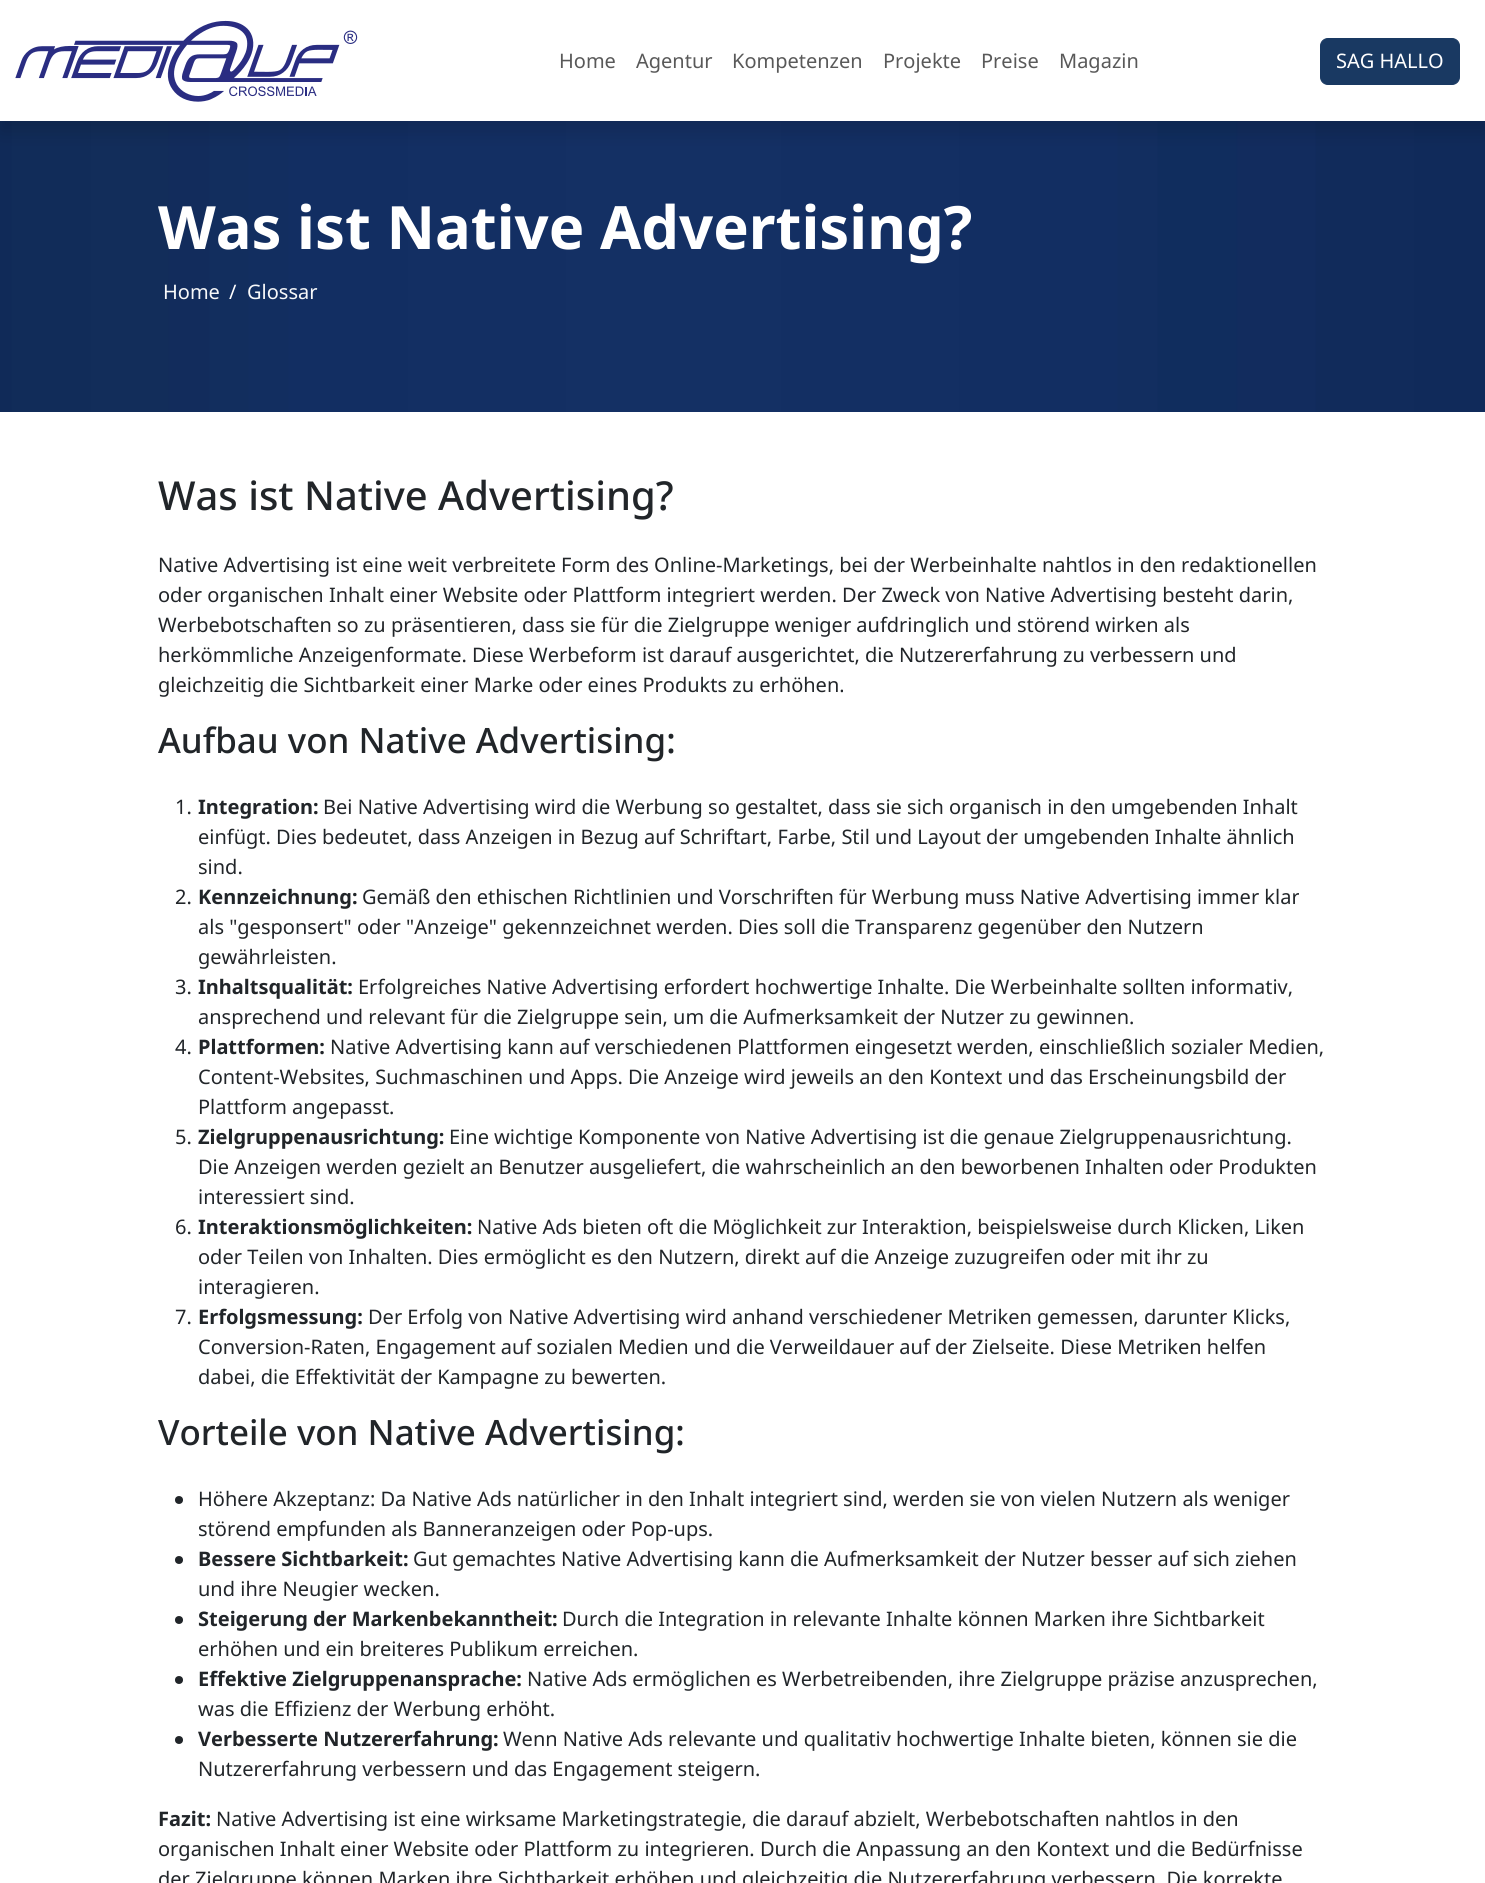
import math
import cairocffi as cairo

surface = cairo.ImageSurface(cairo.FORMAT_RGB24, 1485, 1883)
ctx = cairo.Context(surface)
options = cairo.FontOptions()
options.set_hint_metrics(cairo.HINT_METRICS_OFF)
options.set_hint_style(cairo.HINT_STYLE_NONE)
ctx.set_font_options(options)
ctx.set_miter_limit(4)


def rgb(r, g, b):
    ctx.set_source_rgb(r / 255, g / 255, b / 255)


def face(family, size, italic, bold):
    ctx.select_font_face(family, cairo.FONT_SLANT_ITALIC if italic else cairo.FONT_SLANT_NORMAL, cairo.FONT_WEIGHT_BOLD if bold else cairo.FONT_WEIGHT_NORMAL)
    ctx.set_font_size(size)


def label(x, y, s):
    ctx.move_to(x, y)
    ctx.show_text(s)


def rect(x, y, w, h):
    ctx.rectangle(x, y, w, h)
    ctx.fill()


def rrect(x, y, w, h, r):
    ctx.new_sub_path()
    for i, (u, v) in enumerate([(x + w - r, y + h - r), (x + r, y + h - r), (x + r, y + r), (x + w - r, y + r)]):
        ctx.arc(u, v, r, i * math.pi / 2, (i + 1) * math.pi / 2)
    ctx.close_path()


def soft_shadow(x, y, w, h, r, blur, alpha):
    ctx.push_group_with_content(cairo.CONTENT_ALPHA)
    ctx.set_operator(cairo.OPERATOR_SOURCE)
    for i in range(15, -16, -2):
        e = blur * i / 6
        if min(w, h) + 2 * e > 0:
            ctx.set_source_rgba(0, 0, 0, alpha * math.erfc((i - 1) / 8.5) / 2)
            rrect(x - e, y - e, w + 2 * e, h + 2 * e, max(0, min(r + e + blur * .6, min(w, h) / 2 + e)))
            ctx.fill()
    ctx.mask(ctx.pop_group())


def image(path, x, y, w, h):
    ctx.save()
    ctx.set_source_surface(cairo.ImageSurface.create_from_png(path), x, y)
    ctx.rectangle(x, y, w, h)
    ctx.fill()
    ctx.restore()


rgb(255, 255, 255)
ctx.paint()
image('image1.png', 0, 121, 1485, 291)
rgb(0, 0, 0)
soft_shadow(0, 10, 1485, 121, 0, 10, 0.15)
rgb(255, 255, 255)
rect(0, 0, 1485, 121)
image('image0.png', 15, 20, 343, 82)
face('Noto Sans', 20, 0, 0)
rgb(89, 89, 89)
label(559, 68, 'Home')
label(636, 68, 'Agentur')
label(732, 68, 'Kompetenzen')
label(883, 68, 'Projekte')
label(981, 68, 'Preise')
label(1059, 68, 'Magazin')
rgb(25, 57, 98)
rrect(1320.5, 38.5, 139, 46, 7.5)
ctx.fill_preserve()
ctx.set_line_width(1)
ctx.stroke()
rgb(255, 255, 255)
label(1336, 68, 'SAG HALLO')
face('Noto Sans', 59.75, 0, 1)
label(158, 249, 'Was ist Native Advertising?')
face('Noto Sans', 20, 0, 0)
rgb(248, 249, 250)
label(163, 299, 'Home')
rgb(255, 255, 255)
label(229, 299, '/')
rgb(248, 249, 250)
label(247, 299, 'Glossar')
face('Noto Sans Medium', 39.9, 0, 0)
rgb(33, 37, 41)
label(158, 510, 'Was ist Native Advertising?')
face('Noto Sans', 20, 0, 0)
label(158, 572, 'Native Advertising ist eine weit verbreitete Form des Online-Marketings, bei der Werbeinhalte nahtlos in den redaktionellen')
label(158, 602, 'oder organischen Inhalt einer Website oder Plattform integriert werden. Der Zweck von Native Advertising besteht darin,')
label(158, 632, 'Werbebotschaften so zu präsentieren, dass sie für die Zielgruppe weniger aufdringlich und störend wirken als')
label(158, 662, 'herkömmliche Anzeigenformate. Diese Werbeform ist darauf ausgerichtet, die Nutzererfahrung zu verbessern und')
label(158, 692, 'gleichzeitig die Sichtbarkeit einer Marke oder eines Produkts zu erhöhen.')
face('Noto Sans Medium', 34.9, 0, 0)
label(158, 753, 'Aufbau von Native Advertising:')
face('Noto Sans', 20, 0, 0)
label(175, 814, '1.')
face('Noto Sans', 20, 0, 1)
label(198, 814, 'Integration:')
face('Noto Sans', 20, 0, 0)
label(323, 814, 'Bei Native Advertising wird die Werbung so gestaltet, dass sie sich organisch in den umgebenden Inhalt')
label(198, 844, 'einfügt. Dies bedeutet, dass Anzeigen in Bezug auf Schriftart, Farbe, Stil und Layout der umgebenden Inhalte ähnlich')
label(198, 874, 'sind.')
label(175, 904, '2.')
face('Noto Sans', 20, 0, 1)
label(198, 904, 'Kennzeichnung:')
face('Noto Sans', 20, 0, 0)
label(362, 904, 'Gemäß den ethischen Richtlinien und Vorschriften für Werbung muss Native Advertising immer klar')
label(198, 934, 'als "gesponsert" oder "Anzeige" gekennzeichnet werden. Dies soll die Transparenz gegenüber den Nutzern')
label(198, 964, 'gewährleisten.')
label(175, 994, '3.')
face('Noto Sans', 20, 0, 1)
label(198, 994, 'Inhaltsqualität:')
face('Noto Sans', 20, 0, 0)
label(358, 994, 'Erfolgreiches Native Advertising erfordert hochwertige Inhalte. Die Werbeinhalte sollten informativ,')
label(198, 1024, 'ansprechend und relevant für die Zielgruppe sein, um die Aufmerksamkeit der Nutzer zu gewinnen.')
label(175, 1054, '4.')
face('Noto Sans', 20, 0, 1)
label(198, 1054, 'Plattformen:')
face('Noto Sans', 20, 0, 0)
label(330, 1054, 'Native Advertising kann auf verschiedenen Plattformen eingesetzt werden, einschließlich sozialer Medien,')
label(198, 1084, 'Content-Websites, Suchmaschinen und Apps. Die Anzeige wird jeweils an den Kontext und das Erscheinungsbild der')
label(198, 1114, 'Plattform angepasst.')
label(175, 1144, '5.')
face('Noto Sans', 20, 0, 1)
label(198, 1144, 'Zielgruppenausrichtung:')
face('Noto Sans', 20, 0, 0)
label(449, 1144, 'Eine wichtige Komponente von Native Advertising ist die genaue Zielgruppenausrichtung.')
label(198, 1174, 'Die Anzeigen werden gezielt an Benutzer ausgeliefert, die wahrscheinlich an den beworbenen Inhalten oder Produkten')
label(198, 1204, 'interessiert sind.')
label(175, 1234, '6.')
face('Noto Sans', 20, 0, 1)
label(198, 1234, 'Interaktionsmöglichkeiten:')
face('Noto Sans', 20, 0, 0)
label(477, 1234, 'Native Ads bieten oft die Möglichkeit zur Interaktion, beispielsweise durch Klicken, Liken')
label(198, 1264, 'oder Teilen von Inhalten. Dies ermöglicht es den Nutzern, direkt auf die Anzeige zuzugreifen oder mit ihr zu')
label(198, 1294, 'interagieren.')
label(175, 1324, '7.')
face('Noto Sans', 20, 0, 1)
label(198, 1324, 'Erfolgsmessung:')
face('Noto Sans', 20, 0, 0)
label(368, 1324, 'Der Erfolg von Native Advertising wird anhand verschiedener Metriken gemessen, darunter Klicks,')
label(198, 1354, 'Conversion-Raten, Engagement auf sozialen Medien und die Verweildauer auf der Zielseite. Diese Metriken helfen')
label(198, 1384, 'dabei, die Effektivität der Kampagne zu bewerten.')
face('Noto Sans Medium', 34.9, 0, 0)
label(158, 1445, 'Vorteile von Native Advertising:')
ctx.new_path()
ctx.arc(179, 1500, 4, 0, 2 * math.pi)
ctx.fill()
face('Noto Sans', 20, 0, 0)
label(198, 1506, 'Höhere Akzeptanz: Da Native Ads natürlicher in den Inhalt integriert sind, werden sie von vielen Nutzern als weniger')
label(198, 1536, 'störend empfunden als Banneranzeigen oder Pop-ups.')
ctx.new_path()
ctx.arc(179, 1560, 4, 0, 2 * math.pi)
ctx.fill()
face('Noto Sans', 20, 0, 1)
label(198, 1566, 'Bessere Sichtbarkeit:')
face('Noto Sans', 20, 0, 0)
label(413, 1566, 'Gut gemachtes Native Advertising kann die Aufmerksamkeit der Nutzer besser auf sich ziehen')
label(198, 1596, 'und ihre Neugier wecken.')
ctx.new_path()
ctx.arc(179, 1620, 4, 0, 2 * math.pi)
ctx.fill()
face('Noto Sans', 20, 0, 1)
label(198, 1626, 'Steigerung der Markenbekanntheit:')
face('Noto Sans', 20, 0, 0)
label(562, 1626, 'Durch die Integration in relevante Inhalte können Marken ihre Sichtbarkeit')
label(198, 1656, 'erhöhen und ein breiteres Publikum erreichen.')
ctx.new_path()
ctx.arc(179, 1680, 4, 0, 2 * math.pi)
ctx.fill()
face('Noto Sans', 20, 0, 1)
label(198, 1686, 'Effektive Zielgruppenansprache:')
face('Noto Sans', 20, 0, 0)
label(527, 1686, 'Native Ads ermöglichen es Werbetreibenden, ihre Zielgruppe präzise anzusprechen,')
label(198, 1716, 'was die Effizienz der Werbung erhöht.')
ctx.new_path()
ctx.arc(179, 1740, 4, 0, 2 * math.pi)
ctx.fill()
face('Noto Sans', 20, 0, 1)
label(198, 1746, 'Verbesserte Nutzererfahrung:')
face('Noto Sans', 20, 0, 0)
label(503, 1746, 'Wenn Native Ads relevante und qualitativ hochwertige Inhalte bieten, können sie die')
label(198, 1776, 'Nutzererfahrung verbessern und das Engagement steigern.')
face('Noto Sans', 20, 0, 1)
label(158, 1826, 'Fazit:')
face('Noto Sans', 20, 0, 0)
label(216, 1826, 'Native Advertising ist eine wirksame Marketingstrategie, die darauf abzielt, Werbebotschaften nahtlos in den')
label(158, 1856, 'organischen Inhalt einer Website oder Plattform zu integrieren. Durch die Anpassung an den Kontext und die Bedürfnisse')
label(158, 1886, 'der Zielgruppe können Marken ihre Sichtbarkeit erhöhen und gleichzeitig die Nutzererfahrung verbessern. Die korrekte')
surface.write_to_png('render.png')
